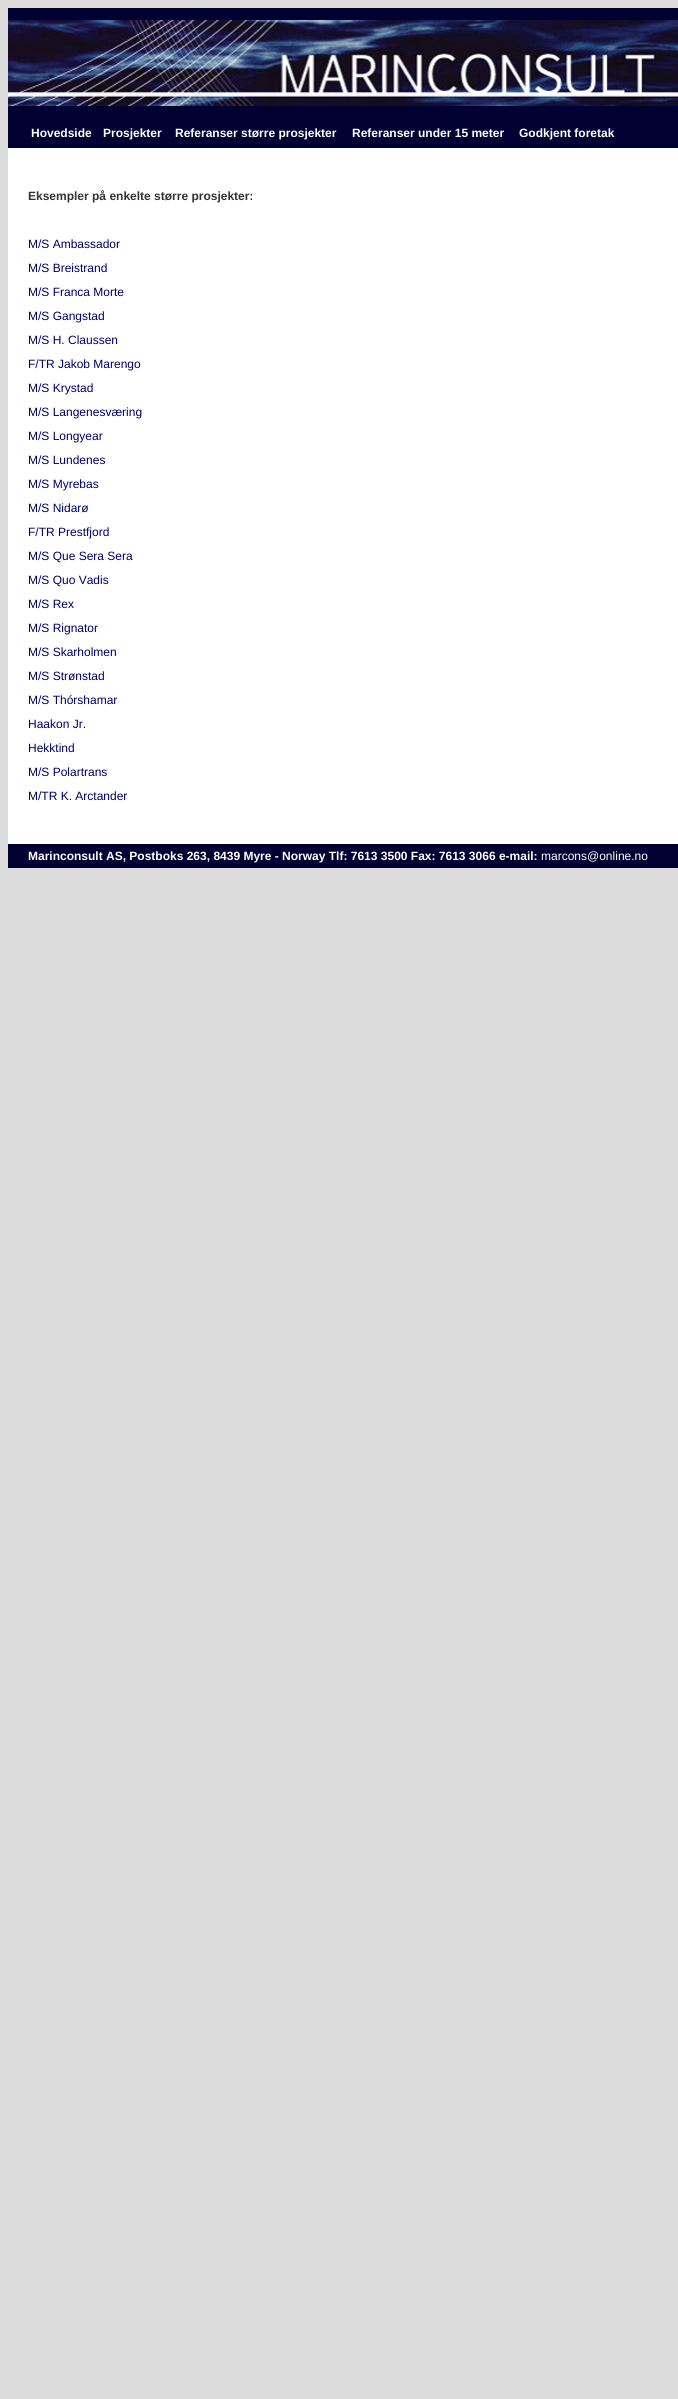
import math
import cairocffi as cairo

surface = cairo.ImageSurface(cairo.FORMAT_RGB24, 678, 2399)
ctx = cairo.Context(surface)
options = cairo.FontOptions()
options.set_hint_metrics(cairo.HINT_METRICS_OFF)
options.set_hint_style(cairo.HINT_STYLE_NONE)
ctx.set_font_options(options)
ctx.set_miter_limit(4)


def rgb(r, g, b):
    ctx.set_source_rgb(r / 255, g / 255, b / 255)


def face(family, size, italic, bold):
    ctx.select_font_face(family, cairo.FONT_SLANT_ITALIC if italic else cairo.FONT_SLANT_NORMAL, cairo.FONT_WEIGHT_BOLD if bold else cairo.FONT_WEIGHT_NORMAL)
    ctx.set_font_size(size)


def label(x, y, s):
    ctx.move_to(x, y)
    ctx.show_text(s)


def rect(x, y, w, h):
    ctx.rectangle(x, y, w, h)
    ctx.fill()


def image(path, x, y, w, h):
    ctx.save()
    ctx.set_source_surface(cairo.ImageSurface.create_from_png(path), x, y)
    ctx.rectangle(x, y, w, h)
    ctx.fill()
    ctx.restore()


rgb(220, 220, 220)
ctx.paint()
rgb(255, 255, 255)
rect(8, 148, 670, 696)
rgb(0, 0, 51)
rect(8, 8, 670, 110)
image('image0.png', 8, 20, 670, 86)
rect(8, 118, 670, 30)
face('Liberation Sans', 12, 0, 1)
rgb(255, 255, 255)
label(31, 137, 'Hovedside')
label(103, 137, 'Prosjekter')
label(175, 137, 'Referanser større prosjekter')
label(352, 137, 'Referanser under 15 meter')
label(519, 137, 'Godkjent foretak')
rgb(51, 51, 51)
label(28, 200, 'Eksempler på enkelte større prosjekter:')
face('Liberation Sans', 12, 0, 0)
rgb(0, 0, 102)
label(28, 248, 'M/S Ambassador')
label(28, 272, 'M/S Breistrand')
label(28, 296, 'M/S Franca Morte')
label(28, 320, 'M/S Gangstad')
label(28, 344, 'M/S H. Claussen')
label(28, 368, 'F/TR Jakob Marengo')
label(28, 392, 'M/S Krystad')
label(28, 416, 'M/S Langenesværing')
label(28, 440, 'M/S Longyear')
label(28, 464, 'M/S Lundenes')
label(28, 488, 'M/S Myrebas')
label(28, 512, 'M/S Nidarø')
label(28, 536, 'F/TR Prestfjord')
label(28, 560, 'M/S Que Sera Sera')
label(28, 584, 'M/S Quo Vadis')
label(28, 608, 'M/S Rex')
label(28, 632, 'M/S Rignator')
label(28, 656, 'M/S Skarholmen')
label(28, 680, 'M/S Strønstad')
label(28, 704, 'M/S Thórshamar')
label(28, 728, 'Haakon Jr.')
label(28, 752, 'Hekktind')
label(28, 776, 'M/S Polartrans')
label(28, 800, 'M/TR K. Arctander')
rgb(0, 0, 51)
rect(8, 844, 670, 24)
face('Liberation Sans', 12, 0, 1)
rgb(255, 255, 255)
label(28, 860, 'Marinconsult AS, Postboks 263, 8439 Myre - Norway Tlf: 7613 3500 Fax: 7613 3066 e-mail:')
face('Liberation Sans', 12, 0, 0)
label(541, 860, 'marcons@online.no')
surface.write_to_png('render.png')
